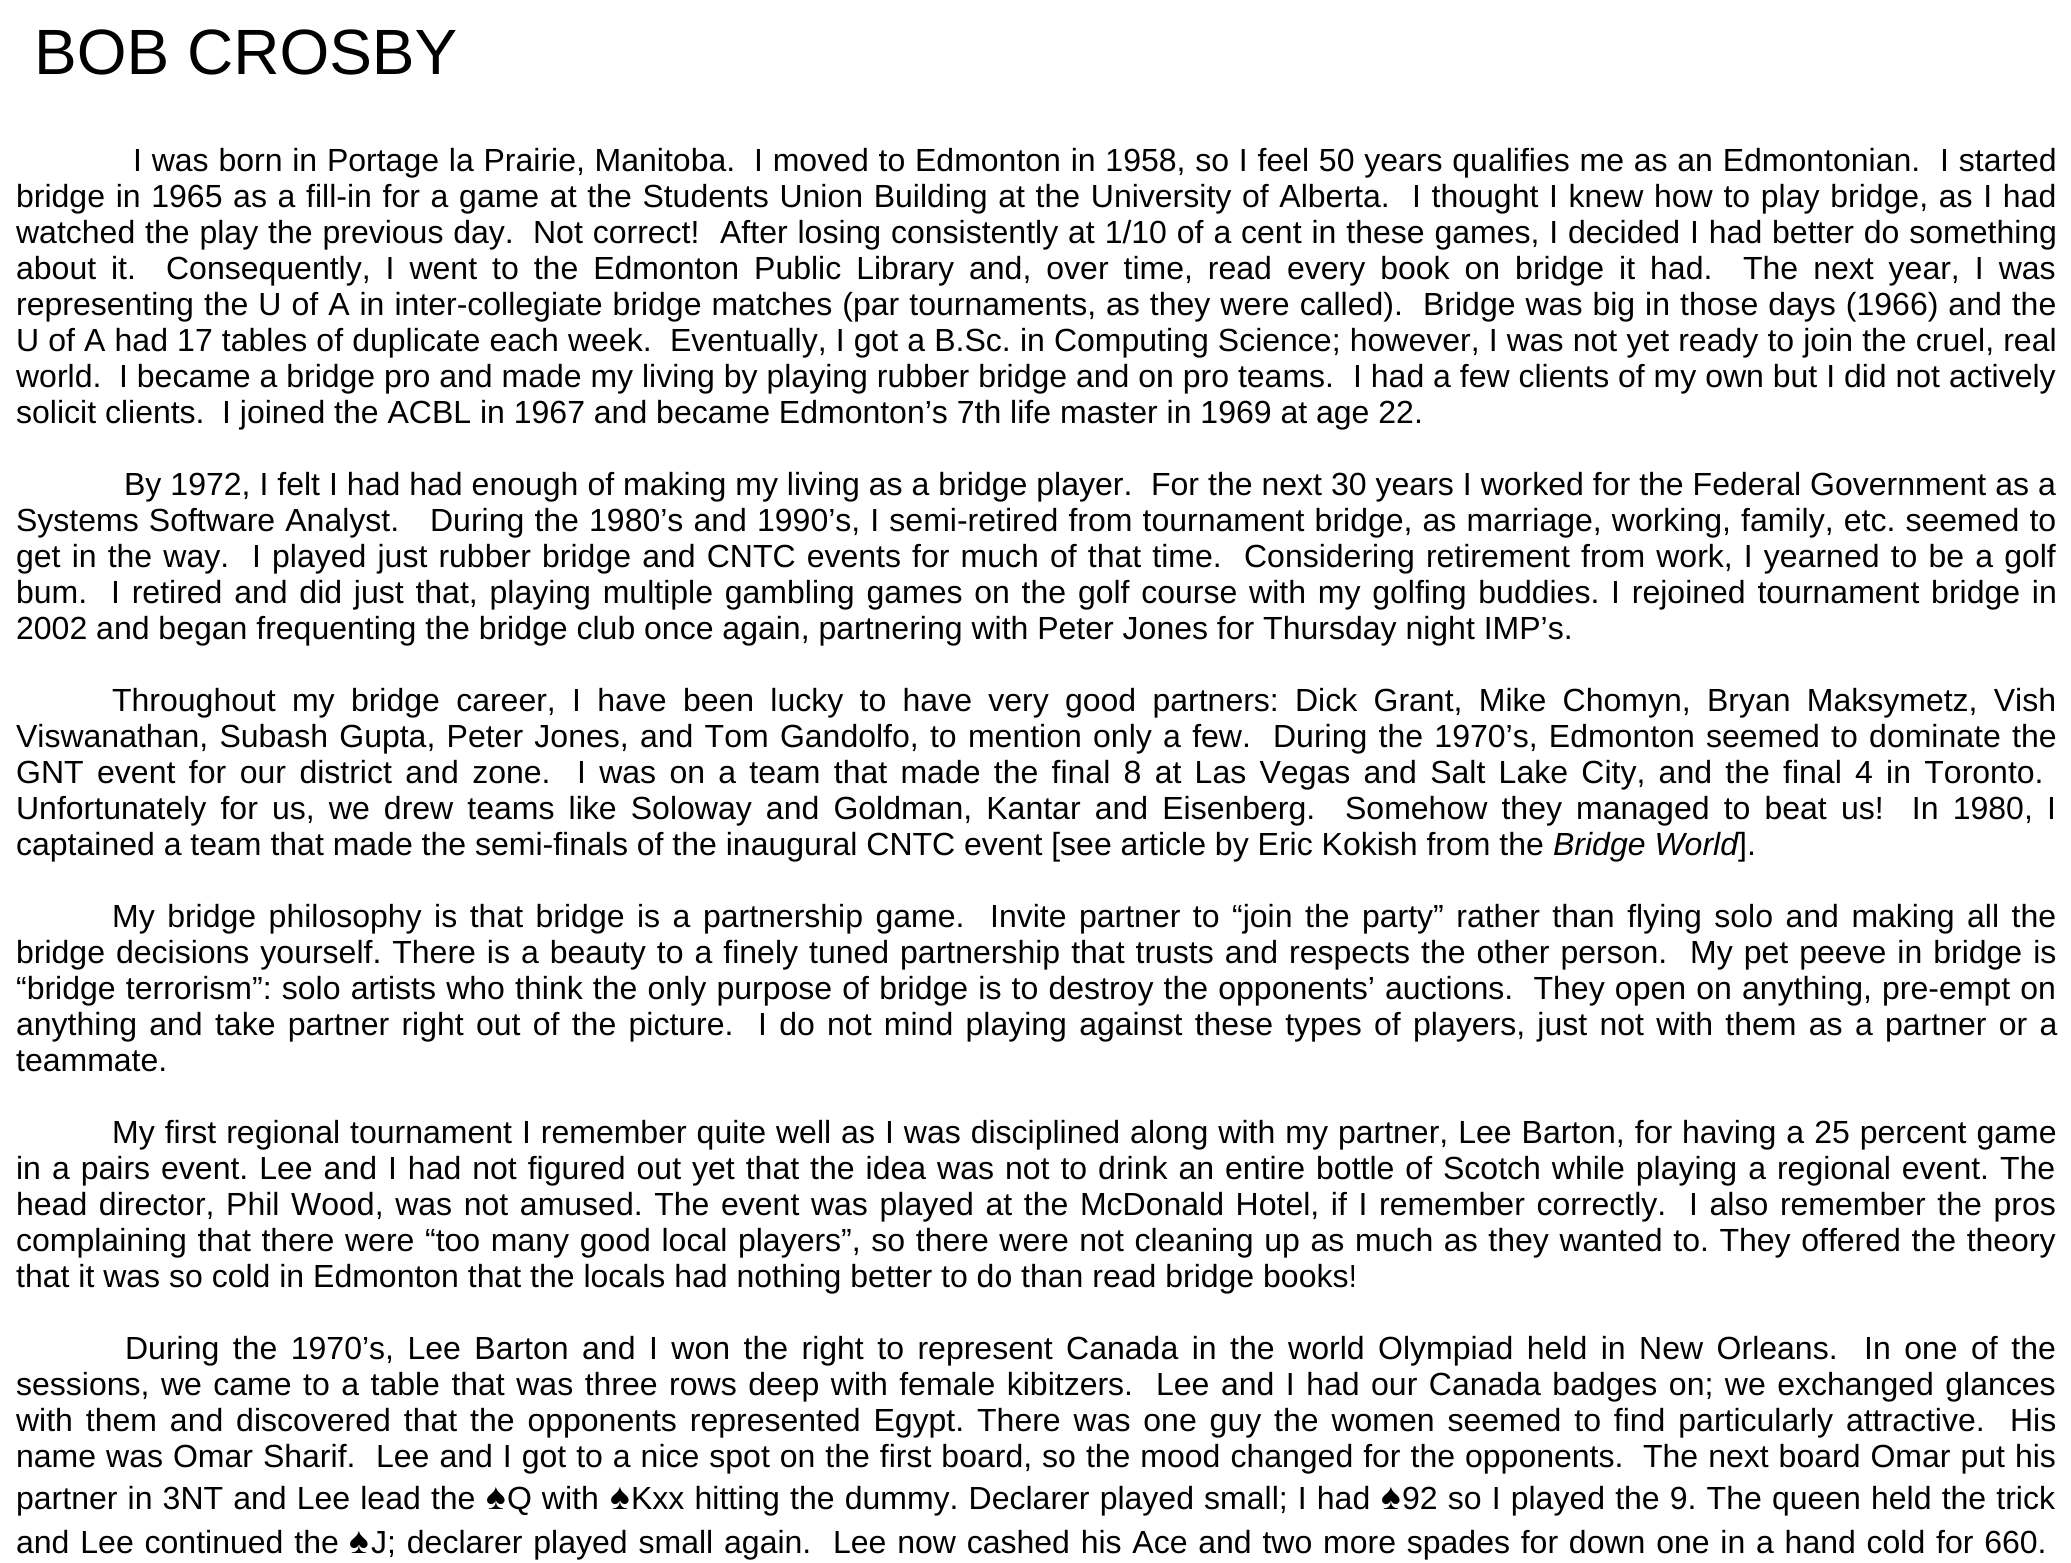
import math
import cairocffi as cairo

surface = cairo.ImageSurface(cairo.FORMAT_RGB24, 2071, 1563)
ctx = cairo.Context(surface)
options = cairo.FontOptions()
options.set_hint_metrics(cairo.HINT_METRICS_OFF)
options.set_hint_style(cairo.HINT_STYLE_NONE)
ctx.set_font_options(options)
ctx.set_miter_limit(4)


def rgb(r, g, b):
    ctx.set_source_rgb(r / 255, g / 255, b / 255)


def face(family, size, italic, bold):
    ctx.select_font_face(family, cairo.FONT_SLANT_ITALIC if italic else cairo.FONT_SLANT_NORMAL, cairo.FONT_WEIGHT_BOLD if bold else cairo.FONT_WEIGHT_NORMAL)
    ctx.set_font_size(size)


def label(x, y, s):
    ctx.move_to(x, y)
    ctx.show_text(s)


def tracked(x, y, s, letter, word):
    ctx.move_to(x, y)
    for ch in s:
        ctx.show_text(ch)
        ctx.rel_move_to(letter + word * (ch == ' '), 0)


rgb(255, 255, 255)
ctx.paint()
face('Liberation Sans', 64, 0, 0)
rgb(0, 0, 0)
label(34, 74, 'BOB CROSBY')
face('Liberation Sans', 32, 0, 0)
tracked(133, 171, 'I was born in Portage la Prairie, Manitoba.', 0, 0.9)
tracked(754, 171, 'I moved to Edmonton in 1958, so I feel 50 years qualifies me as an Edmontonian.', 0, 0.9)
tracked(1940, 171, 'I started', 0, 1)
tracked(16, 207, 'bridge in 1965 as a fill-in for a game at the Students Union Building at the University of Alberta.', 0, 1.8)
tracked(1412, 207, 'I thought I knew how to play bridge, as I had', 0, 1.8)
tracked(16, 243, 'watched the play the previous day.', 0, 1)
tracked(533, 243, 'Not correct!', 0, 1)
tracked(720, 243, 'After losing consistently at 1/10 of a cent in these games, I decided I had better do something', 0, 1)
tracked(16, 279, 'about it.', 0, 6)
tracked(166, 279, 'Consequently, I went to the Edmonton Public Library and, over time, read every book on bridge it had.', 0, 6.1)
tracked(1743, 279, 'The next year, I was', 0, 6.1)
tracked(16, 315, 'representing the U of A in inter-collegiate bridge matches (par tournaments, as they were called).', 0, 1.1)
tracked(1423, 315, 'Bridge was big in those days (1966) and the', 0, 1.1)
tracked(16, 351, 'U of A had 17 tables of duplicate each week.', 0, 0.25)
tracked(670, 351, 'Eventually, I got a B.Sc. in Computing Science; however, I was not yet ready to join the cruel, real', 0, 0.25)
label(16, 387, 'world.')
label(119, 387, 'I became a bridge pro and made my living by playing rubber bridge and on pro teams.')
label(1353, 387, 'I had a few clients of my own but I did not actively')
label(16, 423, 'solicit clients.')
label(222, 423, 'I joined the ACBL in 1967 and became Edmonton’s 7th life master in 1969 at age 22.')
tracked(124, 495, 'By 1972, I felt I had had enough of making my living as a bridge player.', 0, 0.1)
tracked(1151, 495, 'For the next 30 years I worked for the Federal Government as a', 0, 0.1)
tracked(16, 531, 'Systems Software Analyst.', 0, 1.25)
tracked(430, 531, 'During the 1980’s and 1990’s, I semi-retired from tournament bridge, as marriage, working, family, etc. seemed to', 0, 1.25)
tracked(16, 567, 'get in the way.', 0, 2.25)
tracked(252, 567, 'I played just rubber bridge and CNTC events for much of that time.', 0, 2.25)
tracked(1244, 567, 'Considering retirement from work, I yearned to be a golf', 0, 2.25)
label(16, 603, 'bum.')
tracked(111, 603, 'I retired and did just that, playing multiple gambling games on the golf course with my golfing buddies. I rejoined tournament bridge in', 0, 2.9)
label(16, 639, '2002 and began frequenting the bridge club once again, partnering with Peter Jones for Thursday night IMP’s.')
tracked(112, 711, 'Throughout my bridge career, I have been lucky to have very good partners: Dick Grant, Mike Chomyn, Bryan Maksymetz, Vish', 0, 7.4)
tracked(16, 747, 'Viswanathan, Subash Gupta, Peter Jones, and Tom Gandolfo, to mention only a few.', 0, 2.4)
tracked(1273, 747, 'During the 1970’s, Edmonton seemed to dominate the', 0, 2.4)
tracked(16, 783, 'GNT event for our district and zone.', 0, 4.6)
tracked(577, 783, 'I was on a team that made the final 8 at Las Vegas and Salt Lake City, and the final 4 in Toronto.', 0, 4.4)
tracked(16, 819, 'Unfortunately for us, we drew teams like Soloway and Goldman, Kantar and Eisenberg.', 0, 5.25)
tracked(1345, 819, 'Somehow they managed to beat us!  In 1980, I', 0, 5.25)
label(16, 855, 'captained a team that made the semi-finals of the inaugural CNTC event [see article by Eric Kokish from the')
face('Liberation Sans', 32, 1, 0)
label(1553, 855, 'Bridge World')
face('Liberation Sans', 32, 0, 0)
label(1738, 855, '].')
tracked(112, 927, 'My bridge philosophy is that bridge is a partnership game.', 0, 3.6)
tracked(990, 927, 'Invite partner to “join the party” rather than flying solo and making all the', 0, 3.6)
tracked(16, 963, 'bridge decisions yourself. There is a beauty to a finely tuned partnership that trusts and respects the other person.', 0, 2.1)
tracked(1690, 963, 'My pet peeve in bridge is', 0, 2.1)
tracked(16, 999, '“bridge terrorism”: solo artists who think the only purpose of bridge is to destroy the opponents’ auctions.  They open on anything, pre-empt on', 0, 1.3)
tracked(16, 1035, 'anything and take partner right out of the picture.', 0, 3.4)
tracked(758, 1035, 'I do not mind playing against these types of players, just not with them as a partner or a', 0, 3.4)
label(16, 1071, 'teammate.')
tracked(112, 1143, 'My first regional tournament I remember quite well as I was disciplined along with my partner, Lee Barton, for having a 25 percent game', 0, 1.1)
tracked(16, 1179, 'in a pairs event. Lee and I had not figured out yet that the idea was not to drink an entire bottle of Scotch while playing a regional event. The', 0, 2.1)
tracked(16, 1215, 'head director, Phil Wood, was not amused. The event was played at the McDonald Hotel, if I remember correctly.', 0, 2.75)
tracked(1689, 1215, 'I also remember the pros', 0, 2.75)
tracked(16, 1251, 'complaining that there were “too many good local players”, so there were not cleaning up as much as they wanted to. They offered the theory', 0, 1.75)
label(16, 1287, 'that it was so cold in Edmonton that the locals had nothing better to do than read bridge books!')
tracked(125, 1359, 'During the 1970’s, Lee Barton and I won the right to represent Canada in the world Olympiad held in New Orleans.', 0, 4.6)
tracked(1864, 1359, 'In one of the', 0, 4.6)
tracked(16, 1395, 'sessions, we came to a table that was three rows deep with female kibitzers.', 0, 2.6)
tracked(1156, 1395, 'Lee and I had our Canada badges on; we exchanged glances', 0, 2.6)
tracked(16, 1431, 'with them and discovered that the opponents represented Egypt. There was one guy the women seemed to find particularly attractive.', 0, 4)
label(2010, 1431, 'His')
tracked(16, 1467, 'name was Omar Sharif.', 0, 1.1)
tracked(376, 1467, 'Lee and I got to a nice spot on the first board, so the mood changed for the opponents.', 0, 1.1)
tracked(1643, 1467, 'The next board Omar put his', 0, 1.1)
tracked(16, 1509, 'partner in 3NT and Lee lead the', 0, 1.25)
face('Liberation Sans', 37, 0, 0)
label(486, 1509, '♠')
face('Liberation Sans', 32, 0, 0)
tracked(507, 1509, 'Q with', 0, 1)
face('Liberation Sans', 37, 0, 0)
label(610, 1509, '♠')
face('Liberation Sans', 32, 0, 0)
tracked(631, 1509, 'Kxx hitting the dummy. Declarer played small; I had', 0, 1.25)
face('Liberation Sans', 37, 0, 0)
label(1381, 1509, '♠')
face('Liberation Sans', 32, 0, 0)
tracked(1402, 1509, '92 so I played the 9. The queen held the trick', 0, 1.25)
tracked(16, 1553, 'and Lee continued the', 0, 2)
face('Liberation Sans', 37, 0, 0)
label(349, 1553, '♠')
face('Liberation Sans', 32, 0, 0)
tracked(371, 1553, 'J; declarer played small again.', 0, 2)
tracked(833, 1553, 'Lee now cashed his Ace and two more spades for down one in a hand cold for 660.', 0, 1.9)
surface.write_to_png('render.png')
